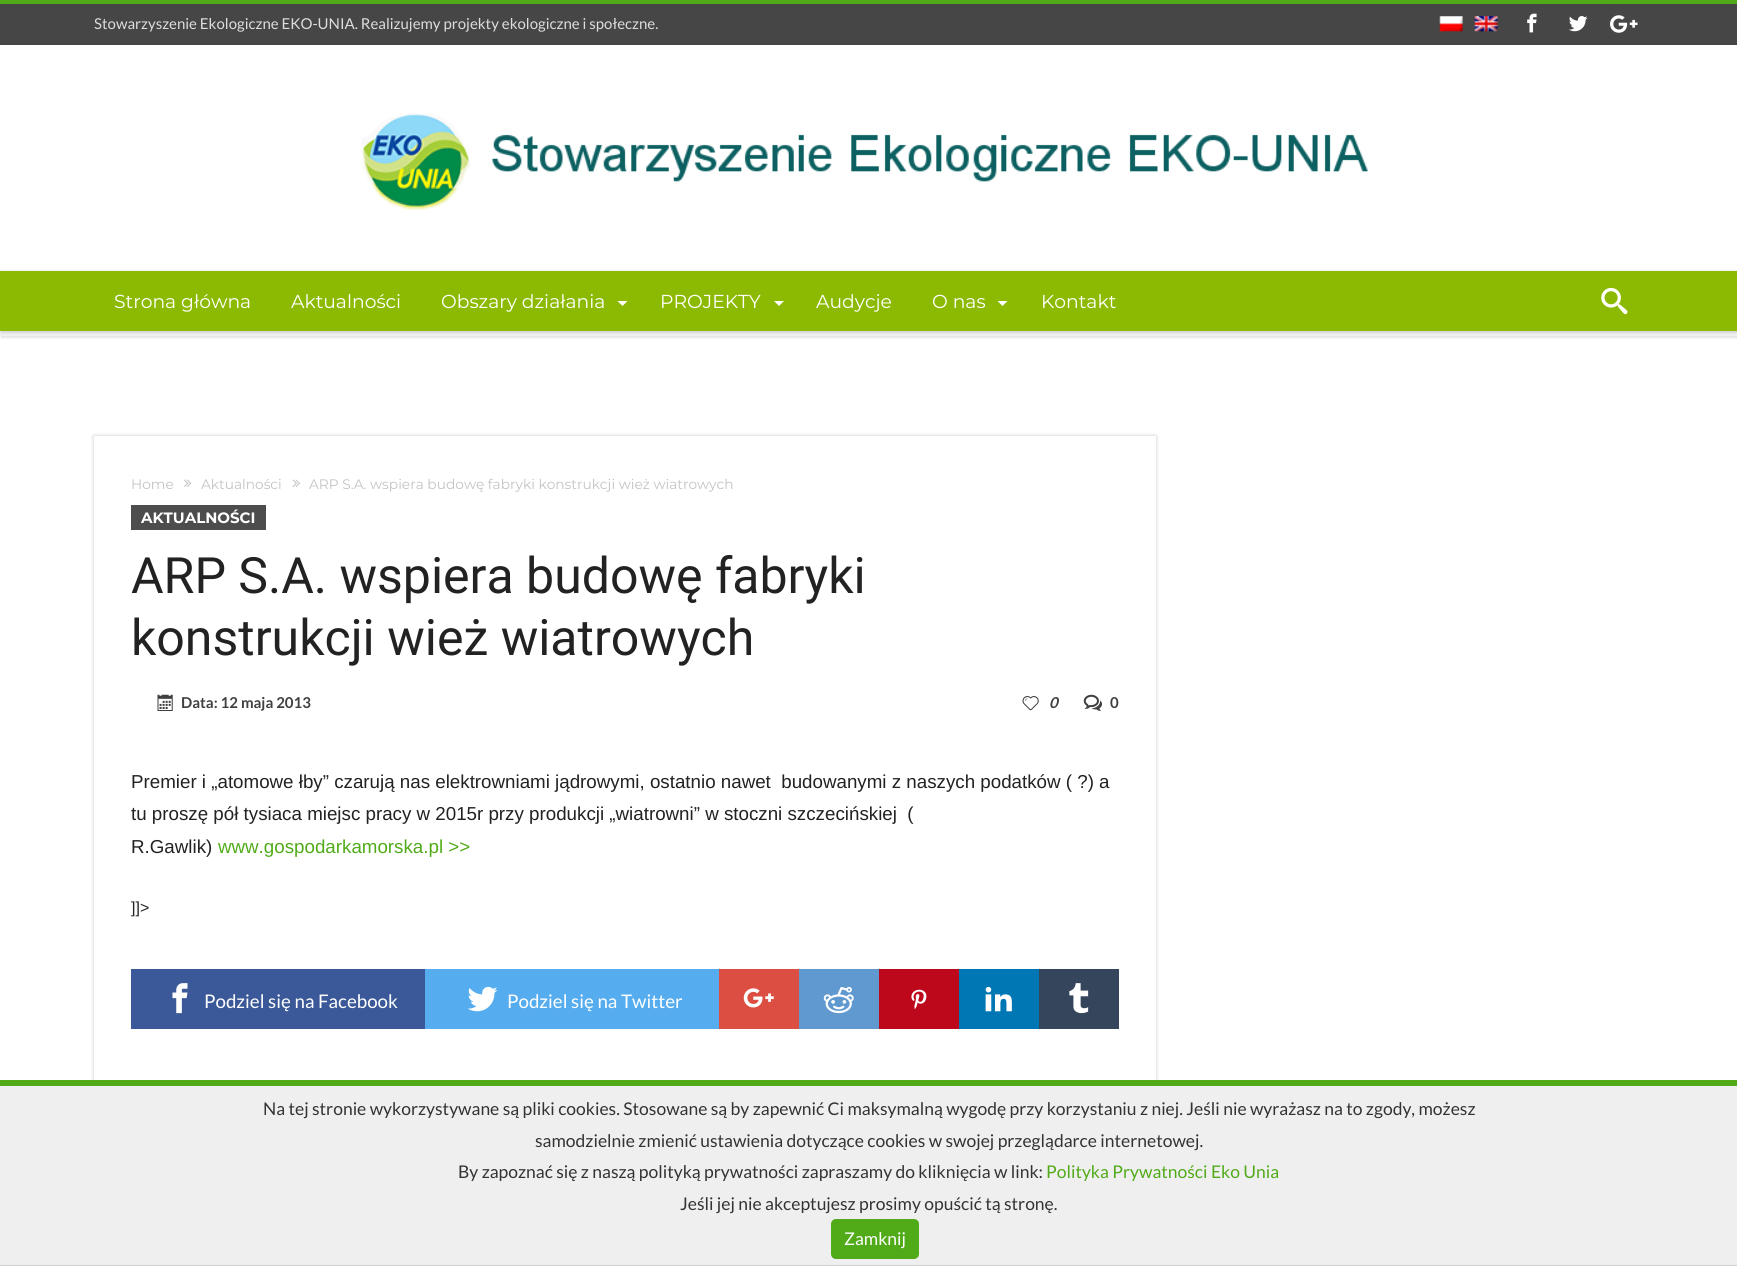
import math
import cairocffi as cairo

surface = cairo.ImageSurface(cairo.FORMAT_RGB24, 1737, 1266)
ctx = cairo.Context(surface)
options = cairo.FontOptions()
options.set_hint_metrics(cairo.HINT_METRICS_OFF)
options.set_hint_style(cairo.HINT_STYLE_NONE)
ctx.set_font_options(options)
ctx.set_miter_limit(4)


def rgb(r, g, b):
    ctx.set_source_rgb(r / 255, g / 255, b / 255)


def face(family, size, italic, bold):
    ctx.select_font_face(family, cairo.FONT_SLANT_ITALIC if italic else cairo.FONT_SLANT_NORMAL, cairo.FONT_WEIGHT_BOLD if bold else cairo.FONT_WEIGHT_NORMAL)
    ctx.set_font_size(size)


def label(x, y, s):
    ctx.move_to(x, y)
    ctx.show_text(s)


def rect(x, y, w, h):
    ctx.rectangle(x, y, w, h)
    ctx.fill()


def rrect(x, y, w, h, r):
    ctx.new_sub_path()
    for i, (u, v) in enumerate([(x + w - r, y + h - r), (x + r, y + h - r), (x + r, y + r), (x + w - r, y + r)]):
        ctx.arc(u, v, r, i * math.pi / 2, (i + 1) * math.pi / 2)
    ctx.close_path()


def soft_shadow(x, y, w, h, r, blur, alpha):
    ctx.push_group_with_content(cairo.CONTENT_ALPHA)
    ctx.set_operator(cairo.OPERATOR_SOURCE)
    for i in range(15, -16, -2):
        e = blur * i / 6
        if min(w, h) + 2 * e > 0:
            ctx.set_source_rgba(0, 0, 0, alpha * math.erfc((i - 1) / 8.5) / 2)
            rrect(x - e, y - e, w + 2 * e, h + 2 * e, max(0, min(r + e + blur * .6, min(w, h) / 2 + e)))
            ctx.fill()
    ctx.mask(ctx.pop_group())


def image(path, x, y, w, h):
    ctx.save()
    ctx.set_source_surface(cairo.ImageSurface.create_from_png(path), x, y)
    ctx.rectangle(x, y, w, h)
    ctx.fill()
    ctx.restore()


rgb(255, 255, 255)
ctx.paint()
rgb(81, 171, 25)
rect(0, 0, 1737, 4)
rgb(70, 70, 70)
rect(0, 4, 1737, 41)
face('Lato', 15, 0, 0)
rgb(221, 221, 221)
label(94, 29, 'Stowarzyszenie Ekologiczne EKO-UNIA. Realizujemy projekty ekologiczne i społeczne.')
image('image0.png', 1439, 16, 24, 16)
image('image1.png', 1474, 16, 24, 16)
image('image2.png', 1527, 13, 10, 20)
image('image3.png', 1569, 16, 19, 16)
image('image4.png', 1610, 15, 28, 18)
image('image5.png', 361, 113, 1008, 98)
rgb(0, 0, 0)
soft_shadow(1, 271, 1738, 67, 0, 1, 0.11)
rgb(240, 240, 240)
rect(0, 270, 1737, 66)
rgb(0, 0, 0)
soft_shadow(1, 273, 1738, 60, 0, 1, 0.11)
rgb(140, 186, 3)
rect(0, 271, 1737, 60)
face('Montserrat', 18.75, 0, 0)
rgb(255, 255, 255)
label(114, 308, 'Strona główna')
label(291, 308, 'Aktualności')
label(441, 308, 'Obszary działania')
ctx.new_path()
ctx.move_to(617.5, 301)
ctx.line_to(627.5, 301)
ctx.line_to(622.5, 306)
ctx.close_path()
ctx.fill()
label(660, 308, 'PROJEKTY')
ctx.new_path()
ctx.move_to(774, 301)
ctx.line_to(784, 301)
ctx.line_to(779, 306)
ctx.close_path()
ctx.fill()
label(816, 308, 'Audycje')
label(932, 308, 'O nas')
ctx.new_path()
ctx.move_to(997.5, 301)
ctx.line_to(1007.5, 301)
ctx.line_to(1002.5, 306)
ctx.close_path()
ctx.fill()
label(1041, 308, 'Kontakt')
image('image6.png', 1601, 287, 27, 28)
rgb(0, 0, 0)
soft_shadow(94, 436, 1062, 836, 0, 2, 0.21)
rgb(255, 255, 255)
rect(94, 436, 1062, 644)
face('Montserrat', 13.75, 0, 0)
rgb(195, 195, 195)
label(131, 489, 'Home')
image('image7.png', 184, 479, 8, 8)
label(201, 489, 'Aktualności')
image('image8.png', 292, 479, 8, 8)
label(309, 489, 'ARP S.A. wspiera budowę fabryki konstrukcji wież wiatrowych')
rgb(77, 77, 77)
rect(131, 505, 135, 25)
face('Montserrat', 15, 0, 1)
rgb(255, 255, 255)
label(141, 523, 'AKTUALNOŚCI')
face('Roboto', 50, 0, 0)
rgb(34, 34, 34)
label(131, 593, 'ARP S.A. wspiera budowę fabryki')
label(131, 655, 'konstrukcji wież wiatrowych')
image('image9.png', 157, 694, 16, 17)
face('Lato', 15, 0, 1)
rgb(64, 64, 64)
label(181, 708, 'Data: 12 maja 2013')
image('image10.png', 1022, 696, 17, 15)
face('Lato', 15, 1, 1)
label(1049, 708, '0')
image('image11.png', 1083, 694, 19, 17)
face('Lato', 15, 0, 1)
label(1110, 708, '0')
face('Liberation Sans', 18.75, 0, 0)
rgb(34, 34, 34)
label(131, 788, 'Premier i „atomowe łby” czarują nas elektrowniami jądrowymi, ostatnio nawet  budowanymi z naszych podatków ( ?) a')
label(131, 820, 'tu proszę pół tysiaca miejsc pracy w 2015r przy produkcji „wiatrowni” w stoczni szczecińskiej  (')
label(131, 853, 'R.Gawlik)')
rgb(81, 171, 25)
label(218, 853, 'www.gospodarkamorska.pl >>')
face('Liberation Sans', 16, 0, 0)
rgb(34, 34, 34)
label(131, 913, ']]>')
rgb(59, 89, 152)
rect(131, 969, 294, 60)
image('image12.png', 172, 983, 16, 31)
face('Lato', 18.75, 0, 0)
rgb(255, 255, 255)
label(204, 1008, 'Podziel się na Facebook')
rgb(85, 172, 238)
rect(425, 969, 294, 60)
image('image13.png', 467, 986, 31, 26)
rgb(255, 255, 255)
label(507, 1008, 'Podziel się na Twitter')
rgb(220, 78, 65)
rect(719, 969, 80, 60)
image('image14.png', 743, 988, 31, 20)
rgb(95, 153, 207)
rect(799, 969, 80, 60)
image('image15.png', 823, 986, 31, 28)
rgb(189, 8, 28)
rect(879, 969, 80, 60)
image('image16.png', 911, 989, 16, 20)
rgb(0, 119, 181)
rect(959, 969, 80, 60)
image('image17.png', 985, 986, 27, 26)
rgb(53, 70, 92)
rect(1039, 969, 80, 60)
image('image18.png', 1069, 983, 20, 31)
rgb(239, 239, 239)
rect(0, 1086, 1737, 179)
rgb(81, 171, 25)
rect(0, 1080, 1737, 6)
rgb(211, 208, 208)
rect(0, 1265, 1737, 1)
face('Lato', 17.5, 0, 0)
rgb(51, 51, 51)
label(263, 1115, 'Na tej stronie wykorzystywane są pliki cookies. Stosowane są by zapewnić Ci maksymalną wygodę przy korzystaniu z niej. Jeśli nie wyrażasz na to zgody, możesz')
label(535, 1147, 'samodzielnie zmienić ustawienia dotyczące cookies w swojej przeglądarce internetowej.')
label(458, 1178, 'By zapoznać się z naszą polityką prywatności zapraszamy do kliknięcia w link:')
rgb(81, 171, 25)
label(1046, 1178, 'Polityka Prywatności Eko Unia')
rgb(51, 51, 51)
label(680, 1210, 'Jeśli jej nie akceptujesz prosimy opuścić tą stronę.')
rgb(81, 171, 25)
rrect(831, 1219, 88, 40, 5)
ctx.fill()
rgb(255, 255, 255)
label(844, 1245, 'Zamknij')
surface.write_to_png('render.png')
